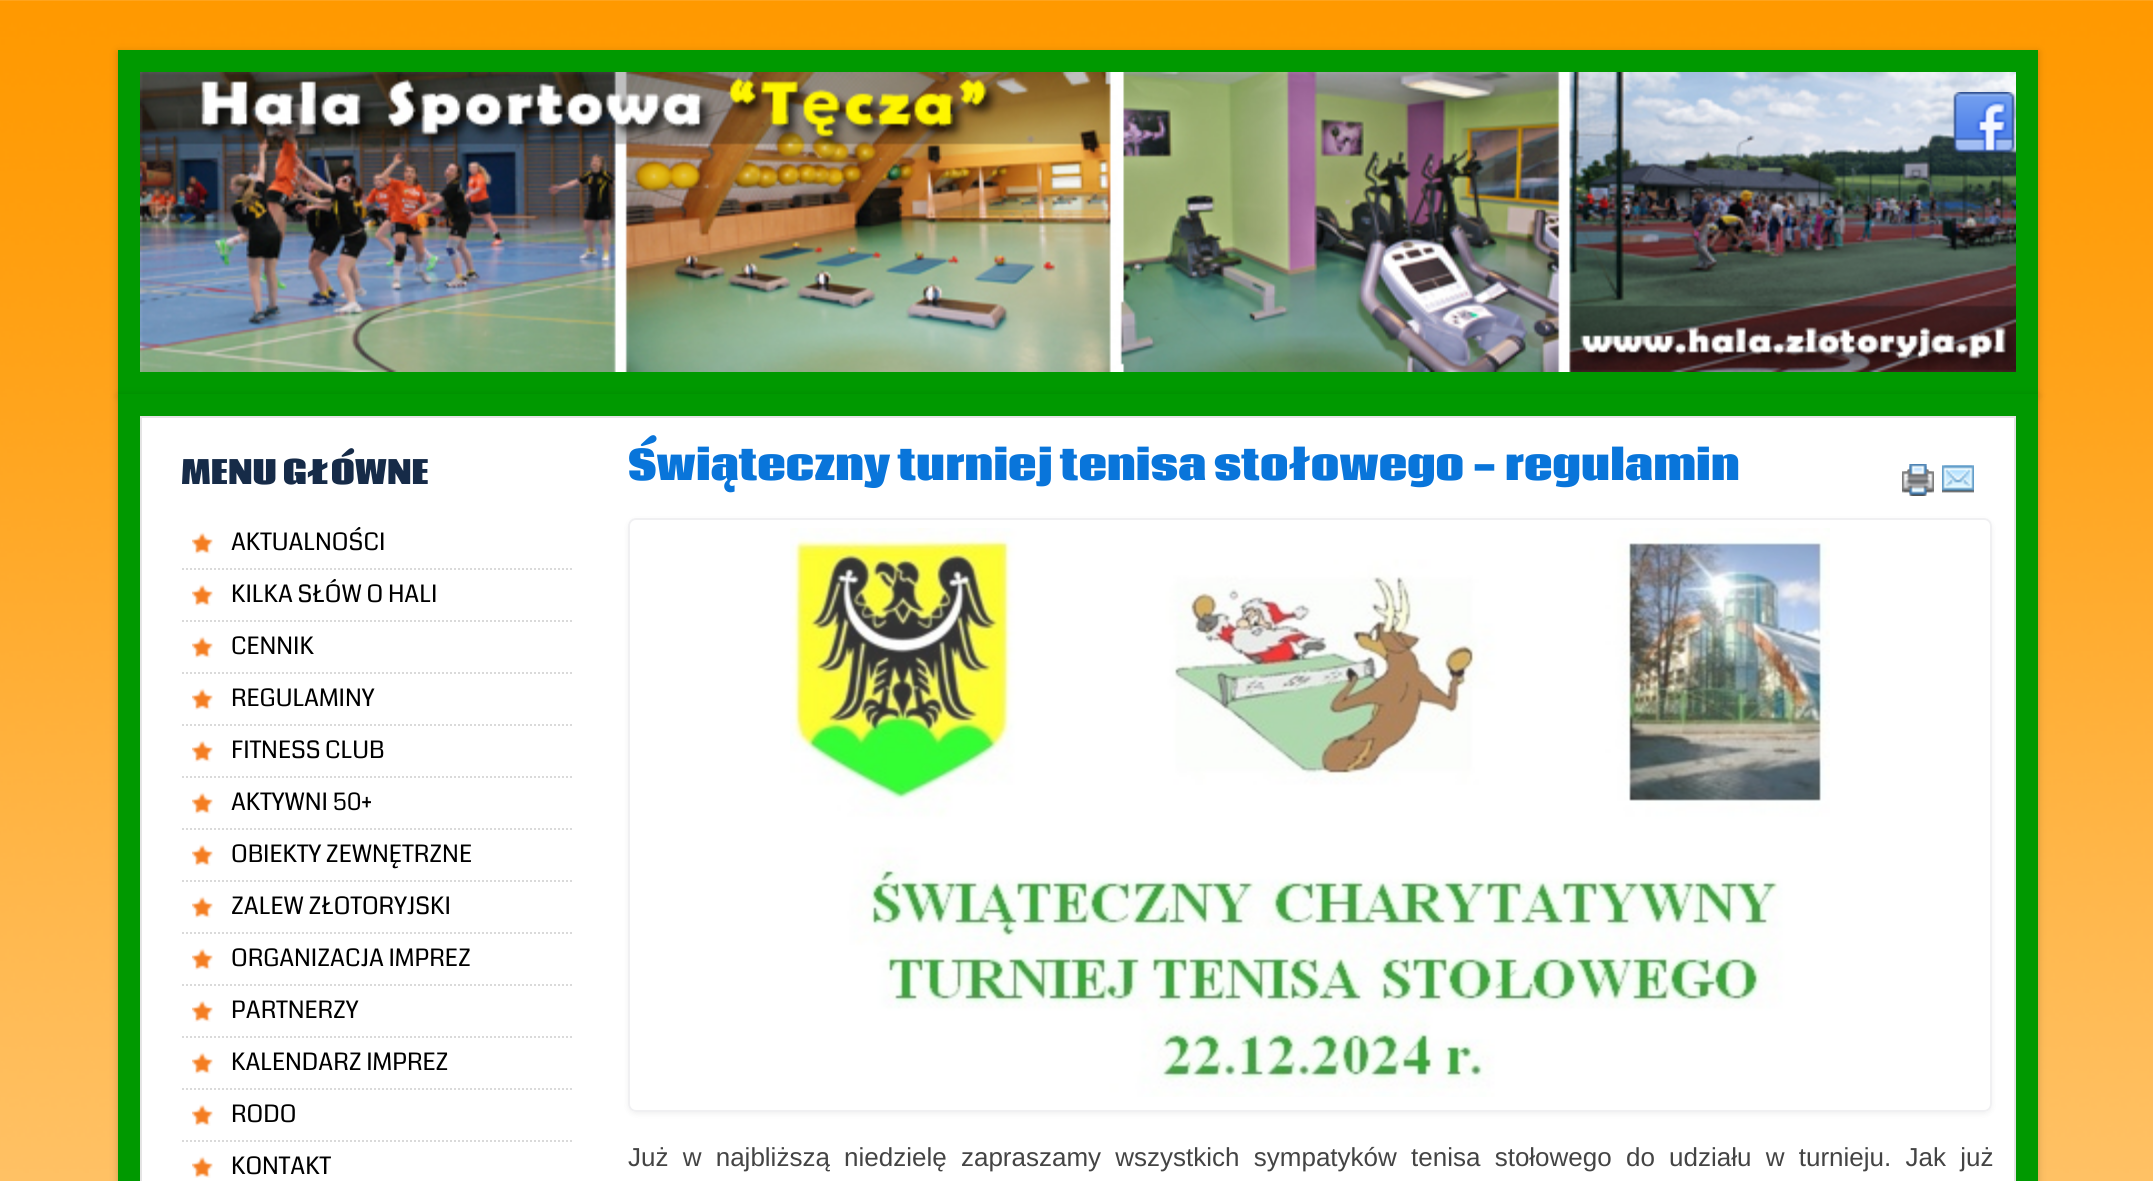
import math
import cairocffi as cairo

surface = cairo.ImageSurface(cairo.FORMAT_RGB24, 2153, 1181)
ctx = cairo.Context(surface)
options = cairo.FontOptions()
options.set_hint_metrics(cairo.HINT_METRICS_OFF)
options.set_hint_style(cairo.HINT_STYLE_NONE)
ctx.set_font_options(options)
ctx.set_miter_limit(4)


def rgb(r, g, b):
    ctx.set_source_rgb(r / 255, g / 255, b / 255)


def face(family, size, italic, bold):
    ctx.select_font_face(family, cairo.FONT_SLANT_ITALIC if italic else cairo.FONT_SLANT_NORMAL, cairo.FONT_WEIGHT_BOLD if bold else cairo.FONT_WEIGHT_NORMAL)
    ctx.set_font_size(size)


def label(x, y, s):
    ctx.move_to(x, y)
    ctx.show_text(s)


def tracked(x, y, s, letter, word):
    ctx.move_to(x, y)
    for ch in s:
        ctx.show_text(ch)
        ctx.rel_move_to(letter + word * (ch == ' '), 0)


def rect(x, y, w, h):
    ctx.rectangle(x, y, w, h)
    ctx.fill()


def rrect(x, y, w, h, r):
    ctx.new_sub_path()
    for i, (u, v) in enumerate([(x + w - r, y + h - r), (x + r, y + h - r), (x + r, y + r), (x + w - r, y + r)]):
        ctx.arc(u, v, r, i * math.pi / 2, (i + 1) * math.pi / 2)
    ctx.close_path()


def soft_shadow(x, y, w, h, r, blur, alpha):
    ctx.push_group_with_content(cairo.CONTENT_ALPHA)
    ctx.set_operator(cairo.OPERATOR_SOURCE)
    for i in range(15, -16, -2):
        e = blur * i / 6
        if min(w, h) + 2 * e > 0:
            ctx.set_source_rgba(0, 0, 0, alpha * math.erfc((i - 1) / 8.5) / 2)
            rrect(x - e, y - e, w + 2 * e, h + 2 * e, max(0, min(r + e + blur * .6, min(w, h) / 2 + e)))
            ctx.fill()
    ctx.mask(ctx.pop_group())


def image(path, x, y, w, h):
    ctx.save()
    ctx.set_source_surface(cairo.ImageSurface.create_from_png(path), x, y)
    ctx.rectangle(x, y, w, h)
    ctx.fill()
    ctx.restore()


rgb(255, 255, 255)
ctx.paint()
image('image0.png', 0, 0, 2153, 1181)
rgb(0, 0, 0)
soft_shadow(118, 52, 1920, 344, 0, 4, 0.2)
rgb(0, 153, 0)
rect(118, 50, 1920, 344)
image('image1.png', 140, 72, 1876, 300)
image('image2.png', 1953, 92, 62, 62)
rgb(0, 0, 0)
soft_shadow(118, 396, 1920, 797, 0, 4, 0.2)
rgb(0, 153, 0)
rect(118, 394, 1920, 787)
rgb(255, 255, 255)
ctx.rectangle(141, 417, 1874, 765)
ctx.fill_preserve()
rgb(228, 228, 228)
ctx.stroke()
face('Coda ExtraBold', 32, 0, 0)
rgb(22, 43, 72)
label(181, 484, 'MENU GŁÓWNE')
ctx.new_path()
ctx.move_to(182, 569)
ctx.line_to(572, 569)
rgb(218, 218, 218)
ctx.set_dash([2, 2])
ctx.stroke()
image('image3.png', 192, 532, 21, 22)
face('Coda', 24, 0, 0)
rgb(0, 0, 0)
label(231, 550, 'AKTUALNOŚCI')
ctx.new_path()
ctx.move_to(182, 621)
ctx.line_to(572, 621)
rgb(218, 218, 218)
ctx.stroke()
image('image3.png', 192, 584, 21, 22)
rgb(0, 0, 0)
label(231, 602, 'KILKA SŁÓW O HALI')
ctx.new_path()
ctx.move_to(182, 673)
ctx.line_to(572, 673)
rgb(218, 218, 218)
ctx.stroke()
image('image3.png', 192, 636, 21, 22)
rgb(0, 0, 0)
label(231, 654, 'CENNIK')
ctx.new_path()
ctx.move_to(182, 725)
ctx.line_to(572, 725)
rgb(218, 218, 218)
ctx.stroke()
image('image3.png', 192, 688, 21, 22)
rgb(0, 0, 0)
label(231, 706, 'REGULAMINY')
ctx.new_path()
ctx.move_to(182, 777)
ctx.line_to(572, 777)
rgb(218, 218, 218)
ctx.stroke()
image('image3.png', 192, 740, 21, 22)
rgb(0, 0, 0)
label(231, 758, 'FITNESS CLUB')
ctx.new_path()
ctx.move_to(182, 829)
ctx.line_to(572, 829)
rgb(218, 218, 218)
ctx.stroke()
image('image3.png', 192, 792, 21, 22)
rgb(0, 0, 0)
label(231, 810, 'AKTYWNI 50+')
ctx.new_path()
ctx.move_to(182, 881)
ctx.line_to(572, 881)
rgb(218, 218, 218)
ctx.stroke()
image('image3.png', 192, 844, 21, 22)
rgb(0, 0, 0)
label(231, 862, 'OBIEKTY ZEWNĘTRZNE')
ctx.new_path()
ctx.move_to(182, 933)
ctx.line_to(572, 933)
rgb(218, 218, 218)
ctx.stroke()
image('image3.png', 192, 896, 21, 22)
rgb(0, 0, 0)
label(231, 914, 'ZALEW ZŁOTORYJSKI')
ctx.new_path()
ctx.move_to(182, 985)
ctx.line_to(572, 985)
rgb(218, 218, 218)
ctx.stroke()
image('image3.png', 192, 948, 21, 22)
rgb(0, 0, 0)
label(231, 966, 'ORGANIZACJA IMPREZ')
ctx.new_path()
ctx.move_to(182, 1037)
ctx.line_to(572, 1037)
rgb(218, 218, 218)
ctx.stroke()
image('image3.png', 192, 1000, 21, 22)
rgb(0, 0, 0)
label(231, 1018, 'PARTNERZY')
ctx.new_path()
ctx.move_to(182, 1089)
ctx.line_to(572, 1089)
rgb(218, 218, 218)
ctx.stroke()
image('image3.png', 192, 1052, 21, 22)
rgb(0, 0, 0)
label(231, 1070, 'KALENDARZ IMPREZ')
ctx.new_path()
ctx.move_to(182, 1141)
ctx.line_to(572, 1141)
rgb(218, 218, 218)
ctx.stroke()
image('image3.png', 192, 1104, 21, 22)
rgb(0, 0, 0)
label(231, 1122, 'RODO')
image('image3.png', 192, 1156, 21, 22)
label(231, 1174, 'KONTAKT')
face('Coda ExtraBold', 40, 0, 0)
rgb(9, 117, 218)
label(628, 480, 'Świąteczny turniej tenisa stołowego - regulamin')
image('image4.png', 1902, 464, 32, 32)
image('image5.png', 1942, 465, 32, 28)
ctx.save()
ctx.set_fill_rule(cairo.FILL_RULE_EVEN_ODD)
ctx.new_path()
ctx.move_to(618, 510)
ctx.line_to(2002, 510)
ctx.line_to(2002, 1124)
ctx.line_to(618, 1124)
ctx.close_path()
ctx.move_to(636, 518)
ctx.line_to(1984, 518)
ctx.curve_to(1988.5, 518, 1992, 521.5, 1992, 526)
ctx.line_to(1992, 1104)
ctx.curve_to(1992, 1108.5, 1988.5, 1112, 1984, 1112)
ctx.line_to(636, 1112)
ctx.curve_to(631.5, 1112, 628, 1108.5, 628, 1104)
ctx.line_to(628, 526)
ctx.curve_to(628, 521.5, 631.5, 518, 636, 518)
ctx.close_path()
ctx.clip()
rgb(0, 0, 0)
soft_shadow(628, 520, 1364, 594, 8, 3, 0.06)
ctx.restore()
rrect(629, 519, 1362, 592, 7)
rgb(240, 240, 242)
ctx.set_dash([])
ctx.stroke()
image('image6.png', 790, 528, 1040, 569)
face('Liberation Sans', 26, 0, 0)
rgb(68, 68, 68)
tracked(628, 1166, 'Już w najbliższą niedzielę zapraszamy wszystkich sympatyków tenisa stołowego do udziału w turnieju. Jak już', 0, 7)
image('image7.png', 1902, 464, 32, 32)
image('image8.png', 1942, 465, 32, 28)
image('image9.png', 1902, 464, 32, 32)
image('image10.png', 1942, 465, 32, 28)
image('image11.png', 1902, 464, 32, 32)
image('image12.png', 1942, 465, 32, 28)
image('image13.png', 1902, 464, 32, 32)
image('image14.png', 1942, 465, 32, 28)
surface.write_to_png('render.png')
